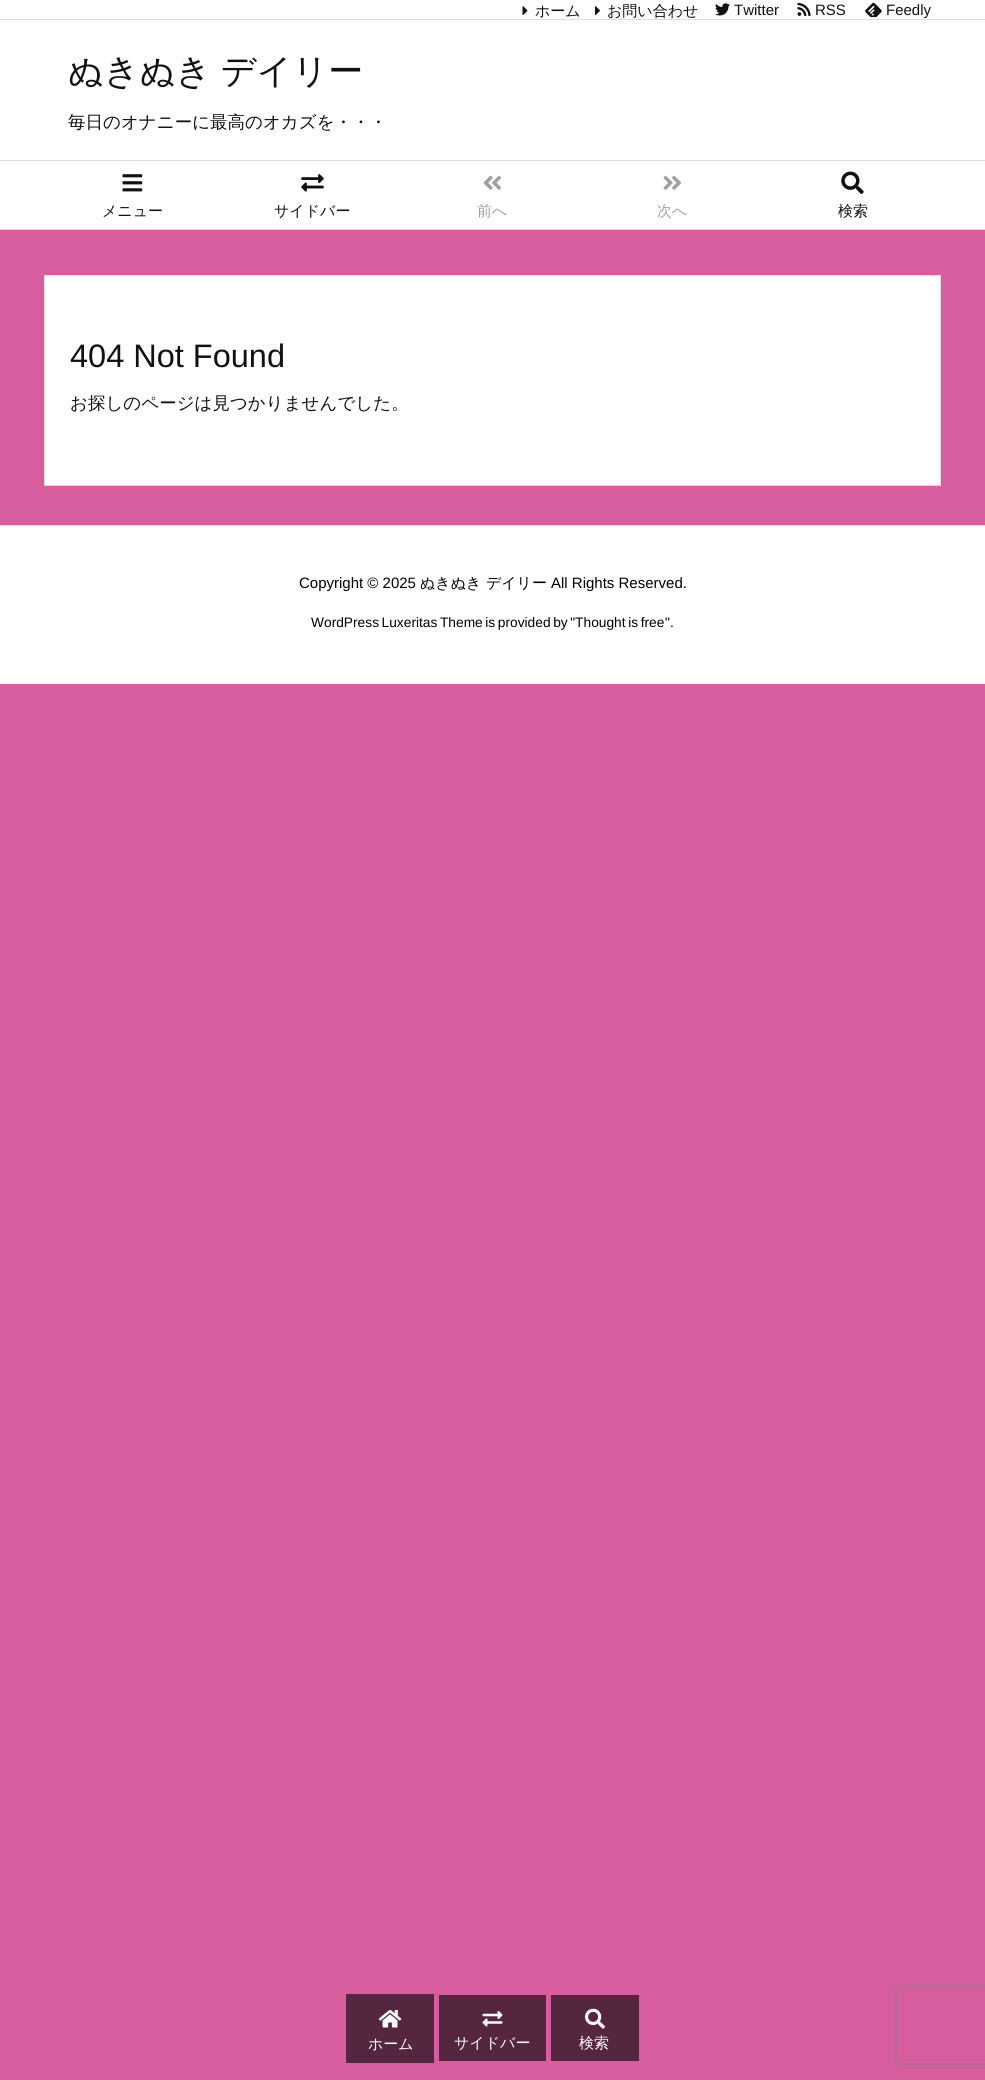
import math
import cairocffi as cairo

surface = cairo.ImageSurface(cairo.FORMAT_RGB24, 985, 2080)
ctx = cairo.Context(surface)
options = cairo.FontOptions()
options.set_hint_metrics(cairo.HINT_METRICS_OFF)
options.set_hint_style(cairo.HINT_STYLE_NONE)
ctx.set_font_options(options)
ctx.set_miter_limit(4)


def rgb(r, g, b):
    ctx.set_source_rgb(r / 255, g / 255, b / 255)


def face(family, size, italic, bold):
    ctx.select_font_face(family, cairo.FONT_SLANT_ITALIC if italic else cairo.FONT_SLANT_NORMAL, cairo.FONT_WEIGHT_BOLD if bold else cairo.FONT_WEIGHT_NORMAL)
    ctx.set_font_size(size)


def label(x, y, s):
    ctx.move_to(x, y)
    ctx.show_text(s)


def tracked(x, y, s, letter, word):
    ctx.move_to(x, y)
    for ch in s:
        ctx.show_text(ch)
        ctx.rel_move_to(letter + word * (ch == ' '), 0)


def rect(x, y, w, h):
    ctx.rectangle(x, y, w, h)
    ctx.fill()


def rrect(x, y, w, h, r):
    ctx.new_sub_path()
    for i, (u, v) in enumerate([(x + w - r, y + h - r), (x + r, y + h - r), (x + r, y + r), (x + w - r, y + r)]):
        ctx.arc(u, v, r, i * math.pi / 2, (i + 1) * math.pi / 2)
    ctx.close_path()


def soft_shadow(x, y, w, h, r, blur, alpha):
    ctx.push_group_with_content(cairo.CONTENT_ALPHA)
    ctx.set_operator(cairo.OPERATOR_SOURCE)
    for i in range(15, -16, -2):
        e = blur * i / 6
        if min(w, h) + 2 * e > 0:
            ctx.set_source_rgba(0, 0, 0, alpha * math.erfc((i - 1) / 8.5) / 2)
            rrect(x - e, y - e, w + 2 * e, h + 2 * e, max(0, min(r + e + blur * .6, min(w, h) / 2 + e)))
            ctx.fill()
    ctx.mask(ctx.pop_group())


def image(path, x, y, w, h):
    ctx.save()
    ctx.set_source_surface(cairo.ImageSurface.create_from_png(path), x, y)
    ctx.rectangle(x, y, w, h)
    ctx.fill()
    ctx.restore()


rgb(216, 93, 159)
ctx.paint()
rgb(255, 255, 255)
rect(0, 0, 985, 160)
rgb(221, 221, 221)
rect(0, 19, 985, 1)
image('image0.png', 522, 6, 6, 9)
face('WenQuanYi Zen Hei Medium', 15, 0, 0)
rgb(17, 17, 17)
label(535, 16, 'ホーム')
image('image1.png', 595, 6, 5, 9)
label(607, 16, 'お問い合わせ')
image('image2.png', 715, 3, 15, 13)
face('Liberation Sans', 15, 0, 0)
label(734, 15, 'Twitter')
image('image3.png', 797, 2, 14, 14)
label(815, 15, 'RSS')
image('image4.png', 865, 2, 17, 16)
label(886, 15, 'Feedly')
rgb(255, 255, 255)
rect(0, 161, 985, 68)
rgb(221, 221, 221)
rect(0, 160, 985, 1)
rect(0, 229, 985, 1)
image('image5.png', 122, 174, 21, 18)
face('WenQuanYi Zen Hei Medium', 15, 0, 0)
rgb(17, 17, 17)
label(102, 216, 'メニュー')
image('image6.png', 301, 174, 23, 18)
label(274, 216, 'サイドバー')
image('image7.png', 483, 175, 18, 15)
rgb(160, 160, 160)
label(477, 216, '前へ')
image('image8.png', 663, 175, 18, 15)
label(657, 216, '次へ')
image('image9.png', 841, 171, 23, 23)
rgb(17, 17, 17)
label(838, 216, '検索')
face('WenQuanYi Zen Hei Medium', 35, 0, 0)
tracked(68, 83, 'ぬきぬき デイリー', 0, -1)
face('WenQuanYi Zen Hei Medium', 17.5, 0, 0)
label(68, 128, '毎日のオナニーに最高のオカズを・・・')
rgb(255, 255, 255)
ctx.rectangle(44.5, 275.5, 896, 210)
ctx.fill_preserve()
rgb(221, 221, 221)
ctx.set_line_width(1)
ctx.stroke()
face('Liberation Sans', 32.5, 0, 0)
rgb(17, 17, 17)
label(70, 367, '404 Not Found')
face('WenQuanYi Zen Hei Medium', 17.5, 0, 0)
label(70, 409, 'お探しのページは見つかりませんでした。')
rgb(255, 255, 255)
rect(0, 526, 985, 158)
rgb(221, 221, 221)
rect(0, 525, 985, 1)
face('Liberation Sans', 15, 0, 0)
rgb(0, 0, 0)
label(299, 588, 'Copyright © 2025')
face('WenQuanYi Zen Hei Medium', 15, 0, 0)
label(420, 588, 'ぬきぬき デイリー')
face('Liberation Sans', 15, 0, 0)
label(551, 588, 'All Rights Reserved.')
face('Liberation Sans', 13.75, 0, 0)
tracked(311, 627, 'WordPress Luxeritas Theme is provided by "Thought is free', 0, -1.25)
label(665, 627, '".')
rgb(86, 37, 64)
rect(346, 1994, 88, 69)
image('image10.png', 378, 2010, 24, 18)
face('WenQuanYi Zen Hei Medium', 15, 0, 0)
rgb(255, 255, 255)
label(368, 2049, 'ホーム')
rgb(86, 37, 64)
rect(439, 1995, 107, 66)
image('image11.png', 482, 2011, 21, 16)
rgb(255, 255, 255)
label(454, 2048, 'サイドバー')
rgb(86, 37, 64)
rect(551, 1995, 88, 66)
image('image12.png', 585, 2008, 20, 21)
rgb(255, 255, 255)
label(579, 2048, '検索')
ctx.save()
ctx.set_fill_rule(cairo.FILL_RULE_EVEN_ODD)
ctx.new_path()
ctx.move_to(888, 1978)
ctx.line_to(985, 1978)
ctx.line_to(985, 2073)
ctx.line_to(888, 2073)
ctx.close_path()
ctx.move_to(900.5, 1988)
ctx.line_to(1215.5, 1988)
ctx.curve_to(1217, 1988, 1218, 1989, 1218, 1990.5)
ctx.line_to(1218, 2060.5)
ctx.curve_to(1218, 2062, 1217, 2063, 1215.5, 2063)
ctx.line_to(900.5, 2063)
ctx.curve_to(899, 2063, 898, 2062, 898, 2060.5)
ctx.line_to(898, 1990.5)
ctx.curve_to(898, 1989, 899, 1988, 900.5, 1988)
ctx.close_path()
ctx.clip()
rgb(128, 128, 128)
soft_shadow(898, 1988, 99, 75, 2.5, 3, 1)
ctx.restore()
surface.write_to_png('render.png')
